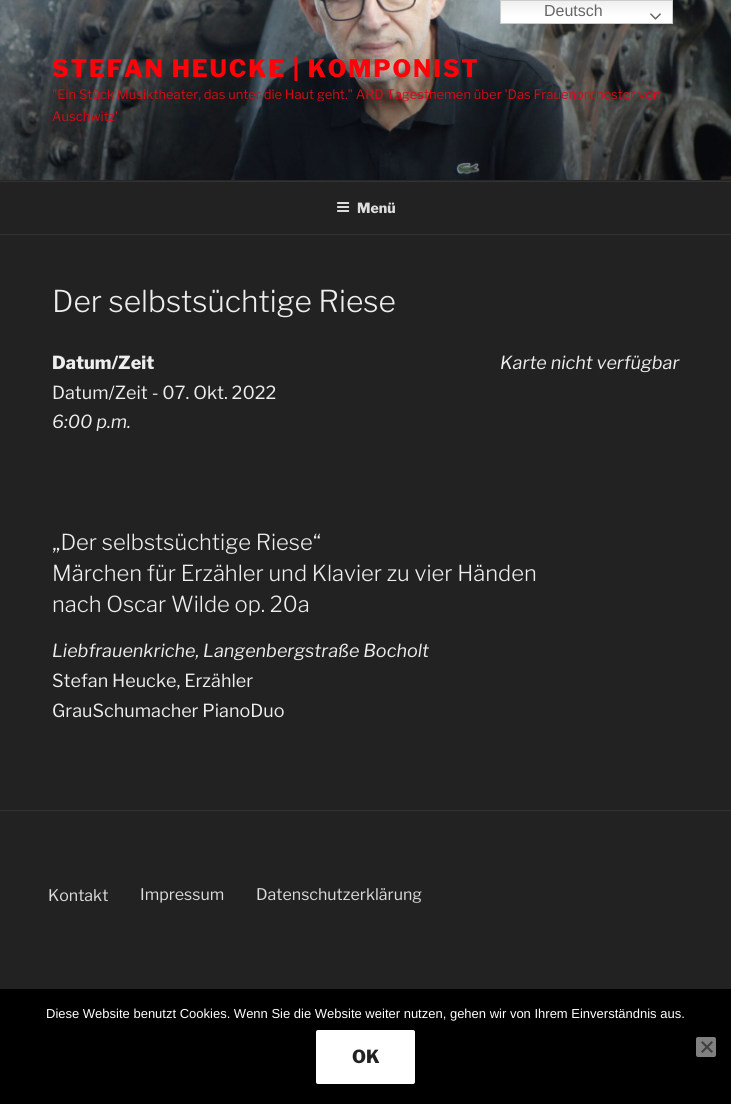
import math
import cairocffi as cairo

surface = cairo.ImageSurface(cairo.FORMAT_RGB24, 731, 1104)
ctx = cairo.Context(surface)
options = cairo.FontOptions()
options.set_hint_metrics(cairo.HINT_METRICS_OFF)
options.set_hint_style(cairo.HINT_STYLE_NONE)
ctx.set_font_options(options)
ctx.set_miter_limit(4)


def rgb(r, g, b):
    ctx.set_source_rgb(r / 255, g / 255, b / 255)


def face(family, size, italic, bold):
    ctx.select_font_face(family, cairo.FONT_SLANT_ITALIC if italic else cairo.FONT_SLANT_NORMAL, cairo.FONT_WEIGHT_BOLD if bold else cairo.FONT_WEIGHT_NORMAL)
    ctx.set_font_size(size)


def label(x, y, s):
    ctx.move_to(x, y)
    ctx.show_text(s)


def tracked(x, y, s, letter, word):
    ctx.move_to(x, y)
    for ch in s:
        ctx.show_text(ch)
        ctx.rel_move_to(letter + word * (ch == ' '), 0)


def rect(x, y, w, h):
    ctx.rectangle(x, y, w, h)
    ctx.fill()


def rrect(x, y, w, h, r):
    ctx.new_sub_path()
    for i, (u, v) in enumerate([(x + w - r, y + h - r), (x + r, y + h - r), (x + r, y + r), (x + w - r, y + r)]):
        ctx.arc(u, v, r, i * math.pi / 2, (i + 1) * math.pi / 2)
    ctx.close_path()


def image(path, x, y, w, h):
    ctx.save()
    ctx.set_source_surface(cairo.ImageSurface.create_from_png(path), x, y)
    ctx.rectangle(x, y, w, h)
    ctx.fill()
    ctx.restore()


rgb(34, 34, 34)
ctx.paint()
image('image1.png', 0, 0, 731, 180)
gradient = cairo.LinearGradient(587, 0, 587, 24)
gradient.add_color_stop_rgba(0, 0.937, 0.937, 0.937, 1)
gradient.add_color_stop_rgba(0.7, 1, 1, 1, 1)
ctx.set_source(gradient)
rect(501, 1, 171, 22)
ctx.rectangle(500.5, 0.5, 172, 23)
rgb(204, 204, 204)
ctx.set_line_width(1)
ctx.stroke()
face('Liberation Sans', 16, 0, 0)
rgb(102, 102, 102)
label(544, 16, 'Deutsch')
image('image0.png', 650, 13, 11, 7)
rgb(38, 38, 38)
rect(0, 180, 731, 1)
face('Libre Franklin Thin', 24, 0, 0)
rgb(255, 2, 10)
tracked(52, 77, 'STEFAN HEUCKE | KOMPONIST', 1.9, 0)
face('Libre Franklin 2 Thin', 13, 0, 0)
rgb(213, 11, 18)
label(52, 99, '"Ein Stück Musiktheater, das unter die Haut geht." ARD Tagesthemen über \'Das Frauenorchester von')
label(52, 121, 'Auschwitz\'')
rgb(51, 51, 51)
rect(0, 181, 731, 1)
rect(0, 234, 731, 1)
image('image2.png', 337, 202, 13, 10)
face('Libre Franklin Thin', 14, 0, 0)
rgb(221, 221, 221)
label(357, 213, 'Menü')
face('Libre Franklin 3 Thin', 30, 0, 0)
rgb(238, 238, 238)
label(52, 312, 'Der selbstsüchtige Riese')
face('Libre Franklin Thin', 18, 0, 0)
label(52, 369, 'Datum/Zeit')
face('Libre Franklin 2 Thin', 18, 0, 0)
label(52, 399, 'Datum/Zeit - 07. Okt. 2022')
face('Libre Franklin Thin', 18, 1, 0)
label(52, 428, '6:00 p.m.')
label(500, 369, 'Karte nicht verfügbar')
face('Libre Franklin 3 Thin', 22, 0, 0)
label(52, 550, '„Der selbstsüchtige Riese“')
label(52, 581, 'Märchen für Erzähler und Klavier zu vier Händen')
label(52, 612, 'nach Oscar Wilde op. 20a')
face('Libre Franklin Thin', 18, 1, 0)
label(52, 657, 'Liebfrauenkriche, Langenbergstraße Bocholt')
face('Libre Franklin 2 Thin', 18, 0, 0)
label(52, 687, 'Stefan Heucke, Erzähler')
label(52, 717, 'GrauSchumacher PianoDuo')
rgb(51, 51, 51)
rect(0, 810, 731, 1)
face('Libre Franklin 2 Thin', 16, 0, 0)
rgb(221, 221, 221)
label(48, 901, 'Kontakt')
label(140, 900, 'Impressum')
label(256, 900, 'Datenschutzerklärung')
rgb(0, 0, 0)
rect(0, 989, 731, 115)
face('Liberation Sans', 13, 0, 0)
rgb(255, 255, 255)
label(46, 1018, 'Diese Website benutzt Cookies. Wenn Sie die Website weiter nutzen, gehen wir von Ihrem Einverständnis aus.')
rrect(316, 1030, 99, 54, 2)
ctx.fill()
face('Libre Franklin Thin', 18, 0, 0)
rgb(34, 34, 34)
label(352, 1063, 'OK')
rgb(128, 128, 128)
rrect(696, 1037, 20, 20, 2)
ctx.fill()
rgb(64, 64, 64)
ctx.new_path()
ctx.move_to(711.5, 1041)
ctx.line_to(713, 1042.5)
ctx.line_to(702.5, 1053)
ctx.line_to(701, 1051.5)
ctx.close_path()
ctx.fill()
ctx.new_path()
ctx.move_to(701, 1042.5)
ctx.line_to(702.5, 1041)
ctx.line_to(713, 1051.5)
ctx.line_to(711.5, 1053)
ctx.close_path()
ctx.fill()
surface.write_to_png('render.png')
